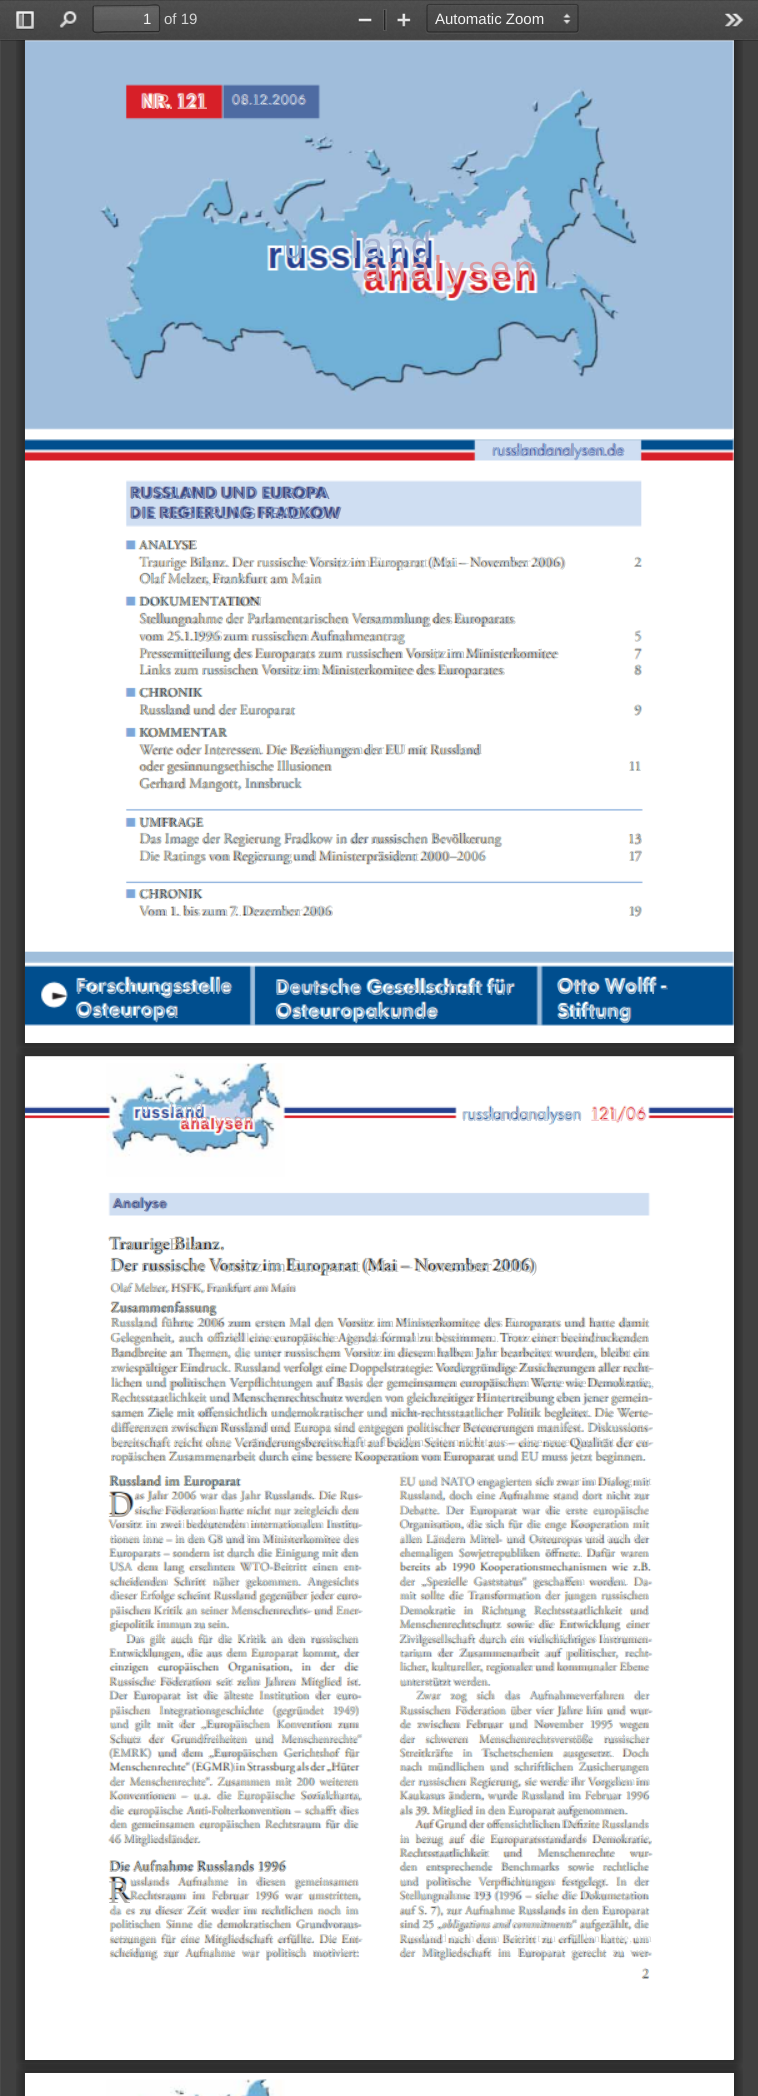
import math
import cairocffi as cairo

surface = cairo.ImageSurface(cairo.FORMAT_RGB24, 758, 2096)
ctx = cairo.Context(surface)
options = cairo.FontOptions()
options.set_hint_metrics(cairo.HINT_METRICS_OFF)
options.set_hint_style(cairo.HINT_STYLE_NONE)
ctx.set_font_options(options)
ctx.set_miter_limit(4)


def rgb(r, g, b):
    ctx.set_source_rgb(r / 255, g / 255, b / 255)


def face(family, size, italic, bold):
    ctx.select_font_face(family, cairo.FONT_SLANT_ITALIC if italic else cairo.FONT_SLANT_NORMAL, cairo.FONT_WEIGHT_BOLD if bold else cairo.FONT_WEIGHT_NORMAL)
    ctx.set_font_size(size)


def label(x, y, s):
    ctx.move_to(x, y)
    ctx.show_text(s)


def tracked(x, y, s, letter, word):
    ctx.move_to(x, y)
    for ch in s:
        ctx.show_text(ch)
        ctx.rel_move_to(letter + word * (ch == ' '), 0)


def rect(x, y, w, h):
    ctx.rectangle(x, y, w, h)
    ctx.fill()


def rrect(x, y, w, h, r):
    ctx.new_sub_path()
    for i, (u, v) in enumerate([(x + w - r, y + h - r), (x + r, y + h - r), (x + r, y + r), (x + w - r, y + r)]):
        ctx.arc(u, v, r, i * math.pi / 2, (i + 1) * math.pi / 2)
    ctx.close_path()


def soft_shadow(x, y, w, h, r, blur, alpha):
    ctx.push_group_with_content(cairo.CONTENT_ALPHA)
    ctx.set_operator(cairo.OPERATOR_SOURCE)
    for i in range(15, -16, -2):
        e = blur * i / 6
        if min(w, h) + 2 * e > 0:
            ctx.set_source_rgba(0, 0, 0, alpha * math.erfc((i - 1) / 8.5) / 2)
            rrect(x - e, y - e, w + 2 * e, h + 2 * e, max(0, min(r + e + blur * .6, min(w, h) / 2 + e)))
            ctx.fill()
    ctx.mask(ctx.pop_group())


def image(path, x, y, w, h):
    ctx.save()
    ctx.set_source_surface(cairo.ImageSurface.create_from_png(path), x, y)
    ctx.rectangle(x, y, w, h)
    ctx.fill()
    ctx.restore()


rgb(64, 64, 64)
ctx.paint()
rgb(74, 74, 74)
rect(0, 40, 1, 2056)
rgb(255, 255, 255)
rect(25, 40, 709, 1003)
image('image7.png', 16, 40, 727, 1013)
image('image8.png', 25, 40, 709, 1003)
ctx.save()
ctx.rectangle(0, 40, 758, 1)
ctx.clip()
rgb(0, 0, 0)
soft_shadow(0, 1, 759, 40, 0, 0.5, 0.1)
ctx.restore()
ctx.set_source_rgba(0, 0, 0, 0.15)
ctx.new_path()
ctx.move_to(0, 40)
ctx.line_to(0, 41)
ctx.line_to(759, 41)
ctx.line_to(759, 1)
ctx.line_to(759, 40)
ctx.close_path()
ctx.fill()
image('image0.png', 0, 0, 758, 40)
ctx.set_source_rgba(1, 1, 1, 0.05)
rect(0, 39, 758, 1)
ctx.set_source_rgba(0, 0, 0, 0.15)
rect(0, 0, 758, 1)
image('image1.png', 16, 11, 18, 19)
image('image2.png', 59, 11, 18, 18)
ctx.set_source_rgba(1, 1, 1, 0.05)
ctx.new_path()
ctx.move_to(93, 32)
ctx.curve_to(93, 33, 94, 34, 96, 34)
ctx.line_to(158, 34)
ctx.curve_to(159, 34, 160, 33, 160, 32)
ctx.line_to(160, 30)
ctx.curve_to(160, 31, 159, 32, 158, 32)
ctx.line_to(95, 32)
ctx.curve_to(94, 32, 93, 32, 93, 32)
ctx.close_path()
ctx.fill()
ctx.set_source_rgba(1, 1, 1, 0.09)
rect(94, 6, 65, 25)
gradient = cairo.LinearGradient(126, 6.2, 126, 31)
gradient.add_color_stop_rgba(0, 1, 1, 1, 0.05)
gradient.add_color_stop_rgba(1, 1, 1, 1, 0)
ctx.set_source(gradient)
rect(94, 6, 65, 14)
ctx.set_source_rgba(0, 0, 0, 0.05)
ctx.new_path()
ctx.move_to(95, 8)
ctx.line_to(158, 8)
ctx.line_to(159, 9)
ctx.curve_to(159, 3, 155, 6, 148, 6)
ctx.line_to(106, 6)
ctx.curve_to(98, 6, 94, 3, 94, 9)
ctx.curve_to(94, 8, 94, 8, 95, 8)
ctx.close_path()
ctx.fill()
ctx.new_path()
ctx.move_to(93.5, 6)
ctx.line_to(147, 5.5)
ctx.curve_to(151, 5.5, 156, 3.5, 159, 6)
ctx.set_source_rgba(0, 0, 0, 0.32)
ctx.set_line_width(1.2)
ctx.stroke()
ctx.new_path()
ctx.move_to(159, 6)
ctx.line_to(159.5, 7.5)
ctx.line_to(159.5, 30)
ctx.line_to(159, 31.5)
ctx.set_source_rgba(0, 0, 0, 0.38)
ctx.stroke()
ctx.new_path()
ctx.move_to(159, 31.5)
ctx.line_to(105.5, 32)
ctx.curve_to(101.5, 32, 96.5, 34, 93.5, 31.5)
ctx.set_source_rgba(0, 0, 0, 0.42)
ctx.stroke()
ctx.new_path()
ctx.move_to(93.5, 31.5)
ctx.line_to(93, 30)
ctx.line_to(93, 7.5)
ctx.line_to(93.5, 6)
ctx.set_source_rgba(0, 0, 0, 0.38)
ctx.stroke()
face('Liberation Sans', 15, 0, 0)
rgb(242, 242, 242)
label(143, 24, '1')
rgb(214, 215, 215)
label(164, 24, 'of 19')
image('image3.png', 358, 18, 14, 5)
ctx.rectangle(383.5, 9.5, 3, 21)
ctx.set_source_rgba(1, 1, 1, 0.08)
ctx.set_line_width(1)
ctx.stroke()
ctx.set_source_rgba(0, 0, 0, 0.5)
rect(384, 10, 1, 20)
image('image4.png', 397, 13, 14, 15)
ctx.set_source_rgba(1, 1, 1, 0.05)
ctx.new_path()
ctx.move_to(426, 6)
ctx.line_to(426, 24)
ctx.curve_to(426, 25, 424, 34, 428, 34)
ctx.line_to(576, 34)
ctx.curve_to(581, 34, 579, 25, 579, 24)
ctx.line_to(579, 6)
ctx.line_to(579, 30)
ctx.curve_to(579, 31, 578, 32, 576, 32)
ctx.line_to(429, 32)
ctx.curve_to(427, 32, 426, 31, 426, 30)
ctx.close_path()
ctx.fill()
image('image5.png', 563, 13, 8, 11)
ctx.new_path()
ctx.move_to(429, 6)
ctx.line_to(576, 6)
ctx.curve_to(577, 6, 578, 7, 578, 8)
ctx.curve_to(578, 7, 578, 5, 577, 5)
ctx.line_to(429, 5)
ctx.curve_to(428, 6, 428, 7, 428, 8)
ctx.curve_to(428, 7, 428, 6, 429, 6)
ctx.close_path()
ctx.fill()
ctx.new_path()
ctx.move_to(427.5, 5)
ctx.line_to(429, 4.5)
ctx.line_to(576, 4.5)
ctx.line_to(577.5, 5)
ctx.set_source_rgba(0, 0, 0, 0.32)
ctx.set_line_width(1.2)
ctx.stroke()
ctx.new_path()
ctx.move_to(577.5, 5)
ctx.line_to(578, 6)
ctx.line_to(578, 30)
ctx.line_to(577.5, 31.5)
ctx.set_source_rgba(0, 0, 0, 0.38)
ctx.stroke()
ctx.new_path()
ctx.move_to(577.5, 31.5)
ctx.line_to(576, 32)
ctx.line_to(429, 32)
ctx.line_to(427.5, 31.5)
ctx.set_source_rgba(0, 0, 0, 0.42)
ctx.stroke()
ctx.new_path()
ctx.move_to(427.5, 31.5)
ctx.line_to(427, 30)
ctx.line_to(427, 6.5)
ctx.line_to(427.5, 5)
ctx.set_source_rgba(0, 0, 0, 0.38)
ctx.stroke()
rgb(242, 242, 242)
label(435, 24, 'Automatic Zoom')
image('image6.png', 724, 13, 20, 15)
face('Liberation Sans', 21.5, 0, 0)
rgb(239, 162, 158)
tracked(141, 109, 'NR. 121', -2, 0)
face('Liberation Sans', 14.25, 0, 0)
rgb(142, 158, 191)
tracked(232, 105, '08.12.2006', 0.25, 0)
face('Liberation Sans', 36, 0, 0)
rgb(137, 161, 198)
label(284, 258, 'u')
rgb(165, 169, 198)
label(351, 258, 'l')
rgb(166, 179, 210)
label(363, 258, 'a')
label(387, 258, 'n')
rgb(160, 172, 205)
label(411, 258, 'd')
rgb(207, 144, 156)
label(362, 281, 'a')
rgb(209, 153, 159)
label(386, 281, 'n')
rgb(207, 144, 156)
label(410, 281, 'a')
rgb(225, 136, 130)
label(434, 281, 'l')
rgb(219, 180, 193)
label(446, 281, 'y')
rgb(217, 153, 160)
label(468, 281, 's')
rgb(217, 163, 172)
label(490, 281, 'e')
rgb(209, 153, 159)
label(514, 281, 'n')
face('Liberation Sans', 16.7, 0, 0)
rgb(152, 171, 210)
tracked(492, 456, 'russlandanalysen.de', -1.1, 0)
rgb(118, 136, 180)
tracked(130, 499, 'RUSSLAND UND EUROPA', -0.4, 0)
rgb(129, 142, 181)
tracked(130, 519, 'DIE REGIERUNG FRADKOW', -0.6, 0)
face('Liberation Serif', 13.1, 0, 0)
rgb(168, 171, 171)
tracked(139, 549, 'ANALYSE', -0.4, 0)
face('Liberation Serif', 14.25, 0, 0)
rgb(200, 202, 202)
tracked(140, 567, 'Traurige Bilanz. Der russische Vorsitz im Europarat (Mai – November 2006)', -0.2, 0)
rgb(176, 177, 179)
label(634, 567, '2')
rgb(200, 202, 202)
tracked(140, 584, 'Olaf Melzer, Frankfurt am Main', -0.1, 0)
face('Liberation Serif', 13.1, 0, 0)
rgb(168, 171, 171)
tracked(139, 606, 'DOKUMENTATION', 0.6, 0)
face('Liberation Serif', 14.25, 0, 0)
rgb(190, 194, 195)
tracked(140, 624, 'Stellungnahme der Parlamentarischen Versammlung des Europarats', -0.2, 0)
rgb(200, 202, 202)
tracked(140, 641, 'vom 25.1.1996 zum russischen Aufnahmeantrag', -0.27, 0)
label(634, 641, '5')
rgb(190, 194, 195)
tracked(140, 658, 'Pressemitteilung des Europarats zum russischen Vorsitz im Ministerkomitee', -0.23, 0)
tracked(140, 675, 'Links zum russischen Vorsitz im Ministerkomitee des Europarates', -0.23, 0)
rgb(183, 181, 178)
label(634, 675, '8')
face('Liberation Serif', 13.1, 0, 0)
rgb(166, 155, 144)
tracked(139, 697, 'CHRONIK', 0.5, 0)
face('Liberation Serif', 14.25, 0, 0)
rgb(180, 187, 192)
tracked(140, 715, 'Russland und der Europarat', -0.15, 0)
rgb(186, 187, 187)
label(634, 715, '9')
face('Liberation Serif', 13.1, 0, 0)
rgb(146, 150, 154)
tracked(139, 737, 'KOMMENTAR', 0.25, 0)
face('Liberation Serif', 14.25, 0, 0)
rgb(190, 194, 195)
tracked(140, 754, 'Werte oder Interessen. Die Beziehungen der EU mit Russland', -0.2, 0)
rgb(183, 181, 178)
tracked(140, 771, 'oder gesinnungsethische Illusionen', -0.25, 0)
rgb(180, 187, 192)
tracked(628, 771, '11', -0.3, 0)
rgb(180, 184, 186)
tracked(140, 788, 'Gerhard Mangott, Innsbruck', -0.07, 0)
face('Liberation Serif', 13.1, 0, 0)
rgb(179, 171, 163)
label(139, 826, 'UMFRAGE')
face('Liberation Serif', 14.25, 0, 0)
rgb(186, 187, 187)
tracked(140, 844, 'Das Image der Regierung Fradkow in der russischen Bevölkerung', -0.25, 0)
rgb(190, 194, 195)
tracked(628, 844, '13', -0.23, 0)
tracked(140, 861, 'Die Ratings von Regierung und Ministerpräsident 2000–2006', -0.12, 0)
rgb(186, 187, 187)
label(628, 861, '17')
face('Liberation Serif', 13.1, 0, 0)
rgb(179, 171, 163)
tracked(139, 899, 'CHRONIK', 0.5, 0)
face('Liberation Serif', 14.25, 0, 0)
rgb(200, 202, 202)
tracked(140, 916, 'Vom 1. bis zum 7. Dezember 2006', -0.2, 0)
rgb(186, 187, 187)
tracked(628, 916, '19', -1, 0)
face('Liberation Sans', 20.25, 0, 0)
rgb(137, 169, 197)
tracked(76, 994, 'Forschungsstelle', 0.2, 0)
rgb(130, 166, 197)
tracked(275, 995, 'Deutsche Gesellschaft für', 0.25, 0)
rgb(163, 188, 209)
tracked(557, 994, 'Otto Wolff', 1, 0)
rgb(75, 125, 168)
tracked(662, 994, '-', -3, 0)
rgb(137, 169, 197)
tracked(76, 1018, 'Osteuropa', 0.9, 0)
rgb(145, 179, 205)
tracked(275, 1019, 'Osteuropakunde', 1, 0)
tracked(557, 1019, 'Stiftung', 0.75, 0)
rgb(255, 255, 255)
rect(25, 1056, 709, 1003)
image('image9.png', 16, 1048, 727, 1021)
image('image10.png', 25, 1056, 709, 1004)
face('Liberation Sans', 15, 0, 0)
rgb(166, 179, 210)
label(141, 1113, 'u')
rgb(186, 186, 199)
label(170, 1113, 'l')
rgb(171, 190, 216)
label(175, 1113, 'a')
rgb(163, 188, 209)
label(185, 1113, 'n')
rgb(178, 189, 213)
label(195, 1113, 'd')
face('Liberation Sans', 17.85, 0, 0)
rgb(186, 201, 220)
tracked(462, 1121, 'russlandanalysen', -1.25, 0)
rgb(244, 199, 202)
tracked(590, 1121, '121/06', 0.25, 0)
face('Liberation Sans', 15, 0, 0)
rgb(227, 173, 178)
label(180, 1125, 'a')
rgb(229, 168, 168)
label(190, 1125, 'n')
rgb(227, 173, 178)
label(200, 1125, 'a')
rgb(238, 192, 193)
label(215, 1125, 'y')
rgb(227, 173, 178)
label(224, 1125, 's')
rgb(217, 163, 172)
label(234, 1125, 'e')
rgb(219, 179, 175)
label(244, 1125, 'n')
face('Liberation Sans', 14.25, 0, 0)
rgb(127, 136, 173)
tracked(113, 1208, 'Analyse', 0.5, 0)
face('Liberation Serif', 17.85, 0, 0)
rgb(183, 181, 178)
tracked(109, 1250, 'Tr au r ige Bi l a n z .', -1.6, 0)
rgb(186, 187, 187)
tracked(110, 1272, 'Der russische Vorsitz im Europarat (Mai – November 2006)', -0.05, 0)
face('Liberation Serif', 11.9, 0, 0)
rgb(200, 202, 202)
tracked(111, 1291, 'Olaf Melzer, HSFK, Frankfurt am Main', -0.15, 0)
face('Liberation Serif', 14.25, 0, 0)
rgb(168, 171, 171)
tracked(111, 1313, 'Zusammenfassung', -0.1, 0)
face('Liberation Serif', 13.1, 0, 0)
rgb(196, 196, 194)
tracked(111, 1327, 'Russland  führte  2006  zum  ersten  Mal  den  Vorsitz  im  Ministerkomitee  des  Europarats  und  hatte  damit', -0.37, 0)
tracked(111, 1342, 'Gelegenheit,  auch  offi', -0.4, 0)
rgb(200, 202, 202)
tracked(229, 1342, 'ziell  eine  europäische  Agenda  formal  zu  bestimmen.  Trotz  einer  beeindruckenden', -0.45, 0)
rgb(186, 187, 187)
tracked(111, 1357, 'Bandbreite an Th', -0.1, 0)
rgb(200, 202, 202)
tracked(200, 1357, 'emen, die unter russischem Vorsitz in diesem halben Jahr bearbeitet wurden, bleibt ein', -0.05, 0)
rgb(190, 194, 195)
tracked(111, 1372, 'zwiespältiger Eindruck. Russland verfolgt eine Doppelstrategie: Vordergründige Zusicherungen aller recht-', -0.2, 0)
tracked(111, 1387, 'lichen und politischen Verpfl', -0.05, 0)
tracked(261, 1387, 'ichtungen auf Basis der gemeinsamen europäischen Werte wie Demokratie,', -0.05, 0)
tracked(111, 1402, 'Rechtsstaatlichkeit und Menschenrechtschutz werden von gleichzeitiger Hintertreibung eben jener gemein-', -0.2, 0)
rgb(186, 187, 187)
tracked(111, 1417, 'samen Ziele mit off', -0.1, 0)
rgb(190, 194, 195)
tracked(212, 1417, 'ensichtlich undemokratischer und nicht-rechtsstaatlicher Politik begleitet. Die Werte-', -0.07, 0)
rgb(196, 189, 183)
tracked(111, 1431, 'diff', -0.15, 0)
rgb(200, 202, 202)
tracked(129, 1431, 'erenzen zwischen Russland und Europa sind entgegen politischer Beteuerungen manifest. Diskussions-', -0.17, 0)
rgb(205, 208, 208)
tracked(111, 1446, 'bereitschaft reicht ohne Veränderungsbereitschaft auf beiden Seiten nicht aus – eine neue Qualität der eu-', -0.1, 0)
rgb(190, 194, 195)
tracked(111, 1461, 'ropäischen Zusammenarbeit durch eine bessere Kooperation von Europarat und EU muss jetzt beginnen.', -0.15, 0)
face('Liberation Serif', 14.25, 0, 0)
rgb(157, 164, 168)
label(109, 1486, 'Russland im Europarat')
face('Liberation Serif', 11.9, 0, 0)
rgb(200, 202, 202)
tracked(400, 1485, 'EU und NATO engagierten sich zwar im Dialog mit', 0.05, 0)
face('Liberation Serif', 33, 0, 0)
rgb(179, 171, 163)
label(108, 1517, 'D')
face('Liberation Serif', 11.9, 0, 0)
rgb(196, 196, 194)
tracked(135, 1499, 'as Jahr 2006 war das Jahr Russlands. Die Rus-', 0.15, 0)
tracked(400, 1499, 'Russland,  doch  eine  Aufnahme  stand  dort  nicht  zur', -0.3, 0)
rgb(200, 202, 202)
label(135, 1514, 'sische Föderation hatte nicht nur zeitgleich den')
tracked(400, 1514, 'Debatte.  Der  Europarat  war  die  erste  europäische', -0.05, 0)
tracked(109, 1528, 'Vorsitz  in  zwei  bedeutenden  internationalen  Institu-', -0.15, 0)
tracked(400, 1528, 'Organisation,  die  sich  für  die  enge  Kooperation  mit', -0.3, 0)
rgb(205, 208, 208)
label(110, 1542, 'tionen inne – in den G8 und im Ministerkomitee des')
tracked(400, 1542, 'allen  Ländern  Mittel-  und  Osteuropas  und  auch  der', -0.3, 0)
rgb(190, 194, 195)
label(109, 1557, 'Europarats – sondern ist durch die Einigung mit den')
tracked(400, 1557, 'ehemaligen  Sowjetrepubliken  öff', -0.2, 0)
rgb(193, 198, 201)
tracked(561, 1557, 'nete.  Dafür  waren', -0.2, 0)
rgb(200, 202, 202)
tracked(109, 1571, 'USA  dem  lang  ersehnten  WTO-Beitritt  einen  ent-', -0.05, 0)
label(110, 1585, 'scheidenden  Schritt  näher  gekommen.  Angesichts')
rgb(196, 196, 194)
tracked(400, 1585, 'der  „Spezielle  Gaststatus“  geschaff', -0.13, 0)
rgb(200, 202, 202)
tracked(574, 1585, 'en  worden.  Da-', -0.1, 0)
tracked(110, 1599, 'dieser Erfolge scheint Russland gegenüber jeder euro-', -0.1, 0)
tracked(400, 1599, 'mit  sollte  die  Transformation  der  jungen  russischen', -0.25, 0)
label(110, 1614, 'päischen Kritik an seiner Menschenrechts- und Ener-')
rgb(190, 194, 195)
tracked(400, 1614, 'Demokratie   in   Richtung   Rechtsstaatlichkeit   und', -0.07, 0)
tracked(110, 1628, 'giepolitik immun zu sein.', -0.1, 0)
tracked(400, 1628, 'Menschenrechtschutz  sowie  die  Entwicklung  einer', -0.07, 0)
rgb(200, 202, 202)
tracked(126, 1642, 'Das  gilt  auch  für  die  Kritik  an  den  russischen', -0.13, 0)
rgb(205, 208, 208)
tracked(399, 1642, 'Zivilgesellschaft  durch  ein  vielschichtiges  Instrumen-', -0.25, 0)
rgb(196, 196, 194)
tracked(109, 1657, 'Entwicklungen,  die  aus  dem  Europarat  kommt,  der', -0.22, 0)
rgb(200, 202, 202)
label(400, 1657, 'tarium  der  Zusammenarbeit  auf  politischer,  recht-')
tracked(400, 1671, 'licher, kultureller, regionaler und kommunaler Ebene', -0.07, 0)
tracked(110, 1685, 'Russische  Föderation  seit  zehn  Jahren  Mitglied  ist.', -0.15, 0)
tracked(400, 1685, 'unterstützt werden.', -0.05, 0)
rgb(196, 196, 194)
label(109, 1699, 'Der  Europarat  ist  die  älteste  Institution  der  euro-')
rgb(200, 202, 202)
label(416, 1699, 'Zwar   zog   sich   das   Aufnahmeverfahren   der')
tracked(110, 1714, 'päischen   Integrationsgeschichte   (gegründet   1949)', -0.1, 0)
tracked(400, 1714, 'Russischen  Föderation  über  vier  Jahre  hin  und  wur-', -0.25, 0)
tracked(110, 1728, 'und  gilt  mit  der  „Europäischen  Konvention  zum', 0.05, 0)
rgb(196, 196, 194)
tracked(400, 1728, 'de  zwischen  Februar  und  November  1995  wegen', -0.03, 0)
rgb(205, 208, 208)
tracked(110, 1742, 'Schutz   der   Grundfreiheiten   und   Menschenrechte“', -0.15, 0)
tracked(400, 1742, 'der    schweren    Menschenrechtsverstöße    russischer', -0.22, 0)
rgb(196, 196, 194)
label(109, 1757, '(EMRK)  und  dem  „Europäischen  Gerichtshof  für')
rgb(200, 202, 202)
label(400, 1757, 'Streitkräfte   in   Tschetschenien   ausgesetzt.   Doch')
tracked(233, 1771, 'i', -0.3, 0)
tracked(333, 1771, 'H', -0.3, 0)
rgb(196, 196, 194)
tracked(400, 1771, 'nach  mündlichen  und  schriftlichen  Zusicherungen', -0.03, 0)
rgb(200, 202, 202)
tracked(110, 1785, 'der  Menschenrechte“.  Zusammen  mit  200  weiteren', -0.2, 0)
rgb(205, 208, 208)
tracked(400, 1785, 'der russischen Regierung, sie werde ihr Vorgehen im', -0.05, 0)
rgb(200, 202, 202)
tracked(110, 1799, 'Konventionen  –  u.a.  die  Europäische  Sozialcharta,', -0.05, 0)
rgb(196, 196, 194)
tracked(400, 1799, 'Kaukasus  ändern,  wurde  Russland  im  Februar  1996', -0.3, 0)
tracked(110, 1814, 'die  europäische  Anti-Folterkonvention  –  schaff', -0.3, 0)
rgb(205, 208, 208)
tracked(332, 1814, 't dies', 0.25, 0)
rgb(190, 194, 195)
tracked(400, 1814, 'als 39. Mitglied in den Europarat aufgenommen.', -0.1, 0)
tracked(110, 1828, 'den  gemeinsamen  europäischen  Rechtsraum  für  die', -0.25, 0)
rgb(196, 189, 183)
tracked(416, 1828, 'Auf Grund der off', -0.2, 0)
rgb(200, 202, 202)
tracked(499, 1828, 'ensichtlichen Defi zite Russlands', -0.27, 0)
tracked(109, 1842, '46 Mitgliedsländer.', -0.05, 0)
label(400, 1842, 'in  bezug  auf  die  Europaratsstandards  Demokratie,')
rgb(190, 194, 195)
label(400, 1857, 'Rechtsstaatlichkeit     und     Menschenrechte     wur-')
face('Liberation Serif', 14.25, 0, 0)
rgb(176, 177, 179)
tracked(109, 1872, 'Die Aufnahme Russlands 1996', -0.05, 0)
face('Liberation Serif', 11.9, 0, 0)
rgb(190, 194, 195)
tracked(400, 1871, 'den   entsprechende   Benchmarks   sowie   rechtliche', -0.12, 0)
face('Liberation Serif', 33, 0, 0)
rgb(176, 173, 170)
label(108, 1903, 'R')
face('Liberation Serif', 11.9, 0, 0)
rgb(200, 202, 202)
tracked(130, 1885, 'usslands   Aufnahme   in   diesen   gemeinsamen', -0.05, 0)
tracked(400, 1885, 'und   politische   Verpfl', -0.2, 0)
tracked(512, 1885, 'ichtungen   festgelegt.   In   der', -0.35, 0)
tracked(130, 1899, 'Rechtsraum  im  Februar  1996  war  umstritten,', 0.05, 0)
tracked(400, 1899, 'Stellungnahme  193  (1996  –  siehe  die  Dokumetation', -0.35, 0)
tracked(110, 1914, 'da  es  zu  dieser  Zeit  weder  im  rechtlichen  noch  im', -0.27, 0)
rgb(190, 194, 195)
label(400, 1914, 'auf S. 7), zur Aufnahme Russlands in den Europarat')
tracked(110, 1928, 'politischen  Sinne  die  demokratischen  Grundvoraus-', -0.15, 0)
tracked(400, 1928, 'sind 25 „', -0.12, 0)
rgb(200, 202, 202)
tracked(442, 1928, 'obligations and commitments', -0.4, 0)
rgb(190, 194, 195)
tracked(572, 1928, '“ aufgezählt, die', -0.1, 0)
rgb(200, 202, 202)
tracked(110, 1942, 'setzungen  für  eine  Mitgliedschaft  erfüllte.  Die  Ent-', -0.15, 0)
rgb(214, 215, 215)
tracked(400, 1942, 'Russland nach dem Beitritt zu erfüllen hatte, um', 0.45, 0)
rgb(200, 202, 202)
label(110, 1956, 'scheidung  zur  Aufnahme  war  politisch  motiviert:')
tracked(400, 1956, 'der  Mitgliedschaft  im  Europarat  gerecht  zu  wer-', 0.08, 0)
face('Liberation Serif', 14.25, 0, 0)
rgb(186, 187, 187)
label(642, 1979, '2')
image('image11.png', 16, 2064, 727, 32)
image('image12.png', 25, 2073, 709, 23)
surface.write_to_png('render.png')
